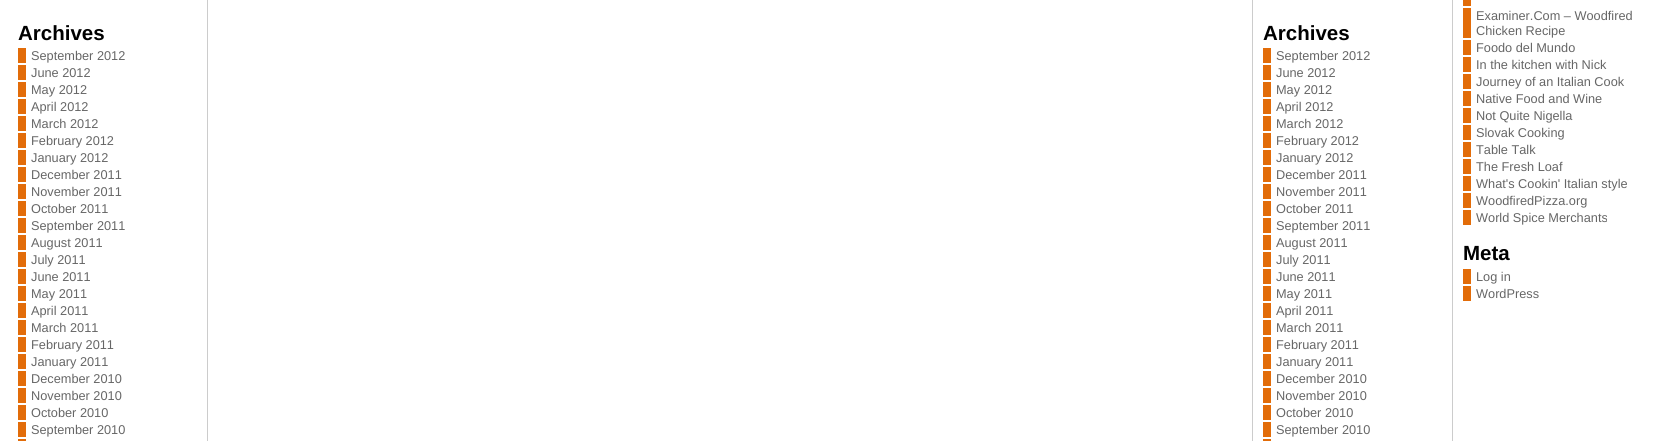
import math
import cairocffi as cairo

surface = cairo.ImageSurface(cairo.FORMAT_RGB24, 1660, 441)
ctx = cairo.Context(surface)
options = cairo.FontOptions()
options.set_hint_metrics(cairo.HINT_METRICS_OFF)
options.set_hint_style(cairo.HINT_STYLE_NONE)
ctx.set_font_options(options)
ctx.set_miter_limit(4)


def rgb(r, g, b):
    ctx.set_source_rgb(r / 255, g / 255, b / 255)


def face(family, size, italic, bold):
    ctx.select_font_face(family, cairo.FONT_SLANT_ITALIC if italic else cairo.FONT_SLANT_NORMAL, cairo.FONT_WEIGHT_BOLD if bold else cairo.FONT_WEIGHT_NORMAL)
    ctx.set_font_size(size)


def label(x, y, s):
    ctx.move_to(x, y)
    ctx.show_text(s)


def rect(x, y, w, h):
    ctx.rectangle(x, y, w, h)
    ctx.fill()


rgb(255, 255, 255)
ctx.paint()
rgb(204, 204, 204)
rect(207, 0, 1, 441)
face('Liberation Sans', 20.5, 0, 1)
rgb(0, 0, 0)
label(18, 40, 'Archives')
rgb(226, 108, 9)
rect(18, 48, 8, 15)
face('Liberation Sans', 12.75, 0, 0)
rgb(102, 102, 102)
label(31, 60, 'September 2012')
rgb(226, 108, 9)
rect(18, 65, 8, 15)
rgb(102, 102, 102)
label(31, 77, 'June 2012')
rgb(226, 108, 9)
rect(18, 82, 8, 15)
rgb(102, 102, 102)
label(31, 94, 'May 2012')
rgb(226, 108, 9)
rect(18, 99, 8, 15)
rgb(102, 102, 102)
label(31, 111, 'April 2012')
rgb(226, 108, 9)
rect(18, 116, 8, 15)
rgb(102, 102, 102)
label(31, 128, 'March 2012')
rgb(226, 108, 9)
rect(18, 133, 8, 15)
rgb(102, 102, 102)
label(31, 145, 'February 2012')
rgb(226, 108, 9)
rect(18, 150, 8, 15)
rgb(102, 102, 102)
label(31, 162, 'January 2012')
rgb(226, 108, 9)
rect(18, 167, 8, 15)
rgb(102, 102, 102)
label(31, 179, 'December 2011')
rgb(226, 108, 9)
rect(18, 184, 8, 15)
rgb(102, 102, 102)
label(31, 196, 'November 2011')
rgb(226, 108, 9)
rect(18, 201, 8, 15)
rgb(102, 102, 102)
label(31, 213, 'October 2011')
rgb(226, 108, 9)
rect(18, 218, 8, 15)
rgb(102, 102, 102)
label(31, 230, 'September 2011')
rgb(226, 108, 9)
rect(18, 235, 8, 15)
rgb(102, 102, 102)
label(31, 247, 'August 2011')
rgb(226, 108, 9)
rect(18, 252, 8, 15)
rgb(102, 102, 102)
label(31, 264, 'July 2011')
rgb(226, 108, 9)
rect(18, 269, 8, 15)
rgb(102, 102, 102)
label(31, 281, 'June 2011')
rgb(226, 108, 9)
rect(18, 286, 8, 15)
rgb(102, 102, 102)
label(31, 298, 'May 2011')
rgb(226, 108, 9)
rect(18, 303, 8, 15)
rgb(102, 102, 102)
label(31, 315, 'April 2011')
rgb(226, 108, 9)
rect(18, 320, 8, 15)
rgb(102, 102, 102)
label(31, 332, 'March 2011')
rgb(226, 108, 9)
rect(18, 337, 8, 15)
rgb(102, 102, 102)
label(31, 349, 'February 2011')
rgb(226, 108, 9)
rect(18, 354, 8, 15)
rgb(102, 102, 102)
label(31, 366, 'January 2011')
rgb(226, 108, 9)
rect(18, 371, 8, 15)
rgb(102, 102, 102)
label(31, 383, 'December 2010')
rgb(226, 108, 9)
rect(18, 388, 8, 15)
rgb(102, 102, 102)
label(31, 400, 'November 2010')
rgb(226, 108, 9)
rect(18, 405, 8, 15)
rgb(102, 102, 102)
label(31, 417, 'October 2010')
rgb(226, 108, 9)
rect(18, 422, 8, 15)
rgb(102, 102, 102)
label(31, 434, 'September 2010')
rgb(226, 108, 9)
rect(18, 439, 8, 2)
rgb(204, 204, 204)
rect(1252, 0, 1, 441)
face('Liberation Sans', 20.5, 0, 1)
rgb(0, 0, 0)
label(1263, 40, 'Archives')
rgb(226, 108, 9)
rect(1263, 48, 8, 15)
face('Liberation Sans', 12.75, 0, 0)
rgb(102, 102, 102)
label(1276, 60, 'September 2012')
rgb(226, 108, 9)
rect(1263, 65, 8, 15)
rgb(102, 102, 102)
label(1276, 77, 'June 2012')
rgb(226, 108, 9)
rect(1263, 82, 8, 15)
rgb(102, 102, 102)
label(1276, 94, 'May 2012')
rgb(226, 108, 9)
rect(1263, 99, 8, 15)
rgb(102, 102, 102)
label(1276, 111, 'April 2012')
rgb(226, 108, 9)
rect(1263, 116, 8, 15)
rgb(102, 102, 102)
label(1276, 128, 'March 2012')
rgb(226, 108, 9)
rect(1263, 133, 8, 15)
rgb(102, 102, 102)
label(1276, 145, 'February 2012')
rgb(226, 108, 9)
rect(1263, 150, 8, 15)
rgb(102, 102, 102)
label(1276, 162, 'January 2012')
rgb(226, 108, 9)
rect(1263, 167, 8, 15)
rgb(102, 102, 102)
label(1276, 179, 'December 2011')
rgb(226, 108, 9)
rect(1263, 184, 8, 15)
rgb(102, 102, 102)
label(1276, 196, 'November 2011')
rgb(226, 108, 9)
rect(1263, 201, 8, 15)
rgb(102, 102, 102)
label(1276, 213, 'October 2011')
rgb(226, 108, 9)
rect(1263, 218, 8, 15)
rgb(102, 102, 102)
label(1276, 230, 'September 2011')
rgb(226, 108, 9)
rect(1263, 235, 8, 15)
rgb(102, 102, 102)
label(1276, 247, 'August 2011')
rgb(226, 108, 9)
rect(1263, 252, 8, 15)
rgb(102, 102, 102)
label(1276, 264, 'July 2011')
rgb(226, 108, 9)
rect(1263, 269, 8, 15)
rgb(102, 102, 102)
label(1276, 281, 'June 2011')
rgb(226, 108, 9)
rect(1263, 286, 8, 15)
rgb(102, 102, 102)
label(1276, 298, 'May 2011')
rgb(226, 108, 9)
rect(1263, 303, 8, 15)
rgb(102, 102, 102)
label(1276, 315, 'April 2011')
rgb(226, 108, 9)
rect(1263, 320, 8, 15)
rgb(102, 102, 102)
label(1276, 332, 'March 2011')
rgb(226, 108, 9)
rect(1263, 337, 8, 15)
rgb(102, 102, 102)
label(1276, 349, 'February 2011')
rgb(226, 108, 9)
rect(1263, 354, 8, 15)
rgb(102, 102, 102)
label(1276, 366, 'January 2011')
rgb(226, 108, 9)
rect(1263, 371, 8, 15)
rgb(102, 102, 102)
label(1276, 383, 'December 2010')
rgb(226, 108, 9)
rect(1263, 388, 8, 15)
rgb(102, 102, 102)
label(1276, 400, 'November 2010')
rgb(226, 108, 9)
rect(1263, 405, 8, 15)
rgb(102, 102, 102)
label(1276, 417, 'October 2010')
rgb(226, 108, 9)
rect(1263, 422, 8, 15)
rgb(102, 102, 102)
label(1276, 434, 'September 2010')
rgb(226, 108, 9)
rect(1263, 439, 8, 2)
rgb(204, 204, 204)
rect(1452, 0, 1, 441)
rgb(226, 108, 9)
rect(1463, 0, 8, 6)
rect(1463, 8, 8, 30)
rgb(102, 102, 102)
label(1476, 20, 'Examiner.Com – Woodfired')
label(1476, 35, 'Chicken Recipe')
rgb(226, 108, 9)
rect(1463, 40, 8, 15)
rgb(102, 102, 102)
label(1476, 52, 'Foodo del Mundo')
rgb(226, 108, 9)
rect(1463, 57, 8, 15)
rgb(102, 102, 102)
label(1476, 69, 'In the kitchen with Nick')
rgb(226, 108, 9)
rect(1463, 74, 8, 15)
rgb(102, 102, 102)
label(1476, 86, 'Journey of an Italian Cook')
rgb(226, 108, 9)
rect(1463, 91, 8, 15)
rgb(102, 102, 102)
label(1476, 103, 'Native Food and Wine')
rgb(226, 108, 9)
rect(1463, 108, 8, 15)
rgb(102, 102, 102)
label(1476, 120, 'Not Quite Nigella')
rgb(226, 108, 9)
rect(1463, 125, 8, 15)
rgb(102, 102, 102)
label(1476, 137, 'Slovak Cooking')
rgb(226, 108, 9)
rect(1463, 142, 8, 15)
rgb(102, 102, 102)
label(1476, 154, 'Table Talk')
rgb(226, 108, 9)
rect(1463, 159, 8, 15)
rgb(102, 102, 102)
label(1476, 171, 'The Fresh Loaf')
rgb(226, 108, 9)
rect(1463, 176, 8, 15)
rgb(102, 102, 102)
label(1476, 188, 'What\'s Cookin\' Italian style')
rgb(226, 108, 9)
rect(1463, 193, 8, 15)
rgb(102, 102, 102)
label(1476, 205, 'WoodfiredPizza.org')
rgb(226, 108, 9)
rect(1463, 210, 8, 15)
rgb(102, 102, 102)
label(1476, 222, 'World Spice Merchants')
face('Liberation Sans', 20.5, 0, 1)
rgb(0, 0, 0)
label(1463, 260, 'Meta')
rgb(226, 108, 9)
rect(1463, 269, 8, 15)
face('Liberation Sans', 12.75, 0, 0)
rgb(102, 102, 102)
label(1476, 281, 'Log in')
rgb(226, 108, 9)
rect(1463, 286, 8, 15)
rgb(102, 102, 102)
label(1476, 298, 'WordPress')
surface.write_to_png('render.png')
